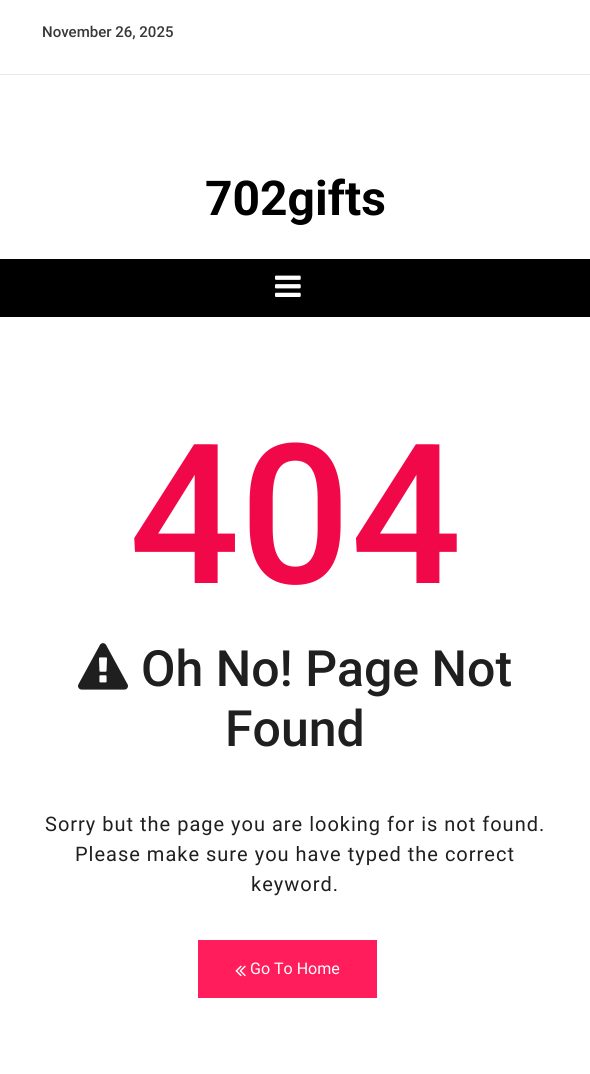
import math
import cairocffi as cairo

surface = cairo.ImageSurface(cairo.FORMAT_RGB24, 590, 1074)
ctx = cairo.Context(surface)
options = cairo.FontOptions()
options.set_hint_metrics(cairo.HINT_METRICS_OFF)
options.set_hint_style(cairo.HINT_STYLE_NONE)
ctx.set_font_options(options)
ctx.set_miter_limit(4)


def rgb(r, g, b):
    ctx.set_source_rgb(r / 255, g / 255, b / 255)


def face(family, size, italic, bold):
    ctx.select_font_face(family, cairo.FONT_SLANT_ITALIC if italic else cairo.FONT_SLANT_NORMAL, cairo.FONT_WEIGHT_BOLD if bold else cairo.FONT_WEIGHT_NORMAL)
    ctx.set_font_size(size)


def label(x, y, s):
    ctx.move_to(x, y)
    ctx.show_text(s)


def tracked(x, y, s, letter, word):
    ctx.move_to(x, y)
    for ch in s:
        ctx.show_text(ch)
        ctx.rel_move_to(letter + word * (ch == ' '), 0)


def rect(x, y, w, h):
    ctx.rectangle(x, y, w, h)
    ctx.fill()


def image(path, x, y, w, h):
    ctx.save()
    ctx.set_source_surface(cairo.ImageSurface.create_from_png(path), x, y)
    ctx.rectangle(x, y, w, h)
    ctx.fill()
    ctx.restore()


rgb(255, 255, 255)
ctx.paint()
rgb(235, 232, 232)
rect(0, 74, 590, 1)
face('Roboto Medium', 15, 0, 0)
rgb(56, 56, 56)
label(42, 37, 'November 26, 2025')
face('Roboto', 48, 0, 1)
rgb(0, 0, 0)
label(205, 215, '702gifts')
rect(0, 259, 590, 58)
image('image0.png', 275, 275, 26, 22)
face('Roboto Medium', 195, 0, 0)
rgb(241, 8, 73)
label(129, 583, '404')
image('image1.png', 78, 643, 50, 47)
face('Roboto Medium', 50, 0, 0)
rgb(31, 31, 31)
label(141, 686, 'Oh No! Page Not')
label(225, 746, 'Found')
face('Roboto', 20, 0, 0)
tracked(45, 831, 'Sorry but the page you are looking for is not found.', 1, 0)
tracked(75, 861, 'Please make sure you have typed the correct', 1, 0)
tracked(251, 891, 'keyword.', 1, 0)
rgb(255, 29, 91)
rect(198, 940, 179, 58)
image('image2.png', 235, 965, 11, 12)
face('Roboto', 16, 0, 0)
rgb(255, 255, 255)
label(250, 974, 'Go To Home')
surface.write_to_png('render.png')
